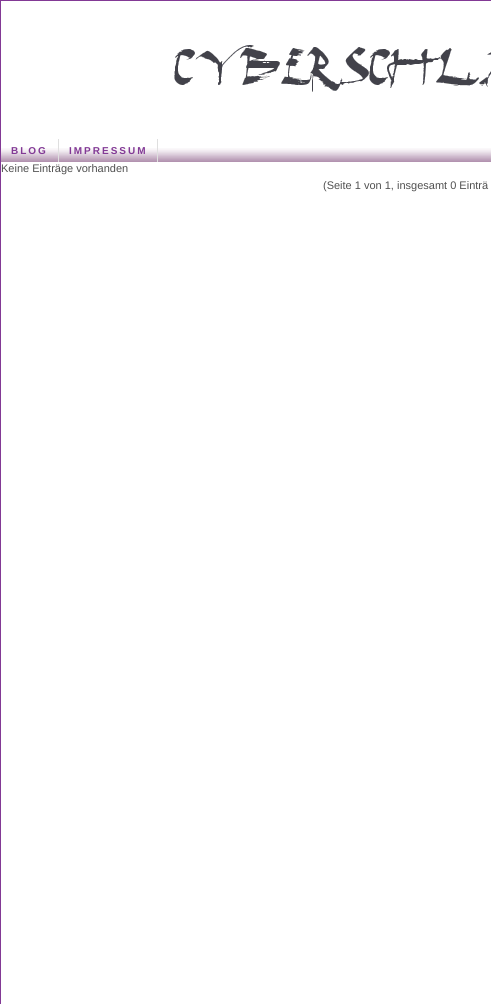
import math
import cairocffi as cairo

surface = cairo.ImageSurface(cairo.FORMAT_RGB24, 491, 1004)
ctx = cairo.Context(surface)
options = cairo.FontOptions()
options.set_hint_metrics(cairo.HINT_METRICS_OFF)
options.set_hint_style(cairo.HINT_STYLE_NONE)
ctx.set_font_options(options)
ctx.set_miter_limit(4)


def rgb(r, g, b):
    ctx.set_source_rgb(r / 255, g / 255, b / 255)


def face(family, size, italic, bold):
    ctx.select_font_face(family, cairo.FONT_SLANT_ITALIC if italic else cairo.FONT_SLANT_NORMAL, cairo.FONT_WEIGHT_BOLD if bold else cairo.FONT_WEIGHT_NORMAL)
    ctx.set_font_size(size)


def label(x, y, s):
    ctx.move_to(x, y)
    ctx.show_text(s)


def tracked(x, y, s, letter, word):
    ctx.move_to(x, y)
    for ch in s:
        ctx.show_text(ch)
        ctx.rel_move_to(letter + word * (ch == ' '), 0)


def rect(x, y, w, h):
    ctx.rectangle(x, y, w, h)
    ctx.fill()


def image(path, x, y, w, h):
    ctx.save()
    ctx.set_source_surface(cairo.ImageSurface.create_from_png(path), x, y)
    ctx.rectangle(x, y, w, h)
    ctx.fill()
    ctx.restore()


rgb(255, 255, 255)
ctx.paint()
ctx.rectangle(0.5, 0.5, 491, 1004)
rgb(130, 57, 149)
ctx.set_line_width(1)
ctx.stroke()
image('image0.png', 174, 45, 317, 47)
image('image1.png', 158, 139, 333, 23)
image('image2.png', 1, 148, 57, 14)
rgb(223, 223, 223)
rect(58, 139, 1, 23)
face('Liberation Sans', 10, 0, 1)
rgb(130, 57, 149)
tracked(11, 154, 'BLOG', 2, 0)
image('image3.png', 59, 148, 98, 14)
rgb(223, 223, 223)
rect(157, 139, 1, 23)
rgb(130, 57, 149)
tracked(69, 154, 'IMPRESSUM', 2, 0)
face('Liberation Sans', 11, 0, 0)
rgb(80, 80, 80)
label(1, 172, 'Keine Einträge vorhanden')
label(323, 189, '(Seite 1 von 1, insgesamt 0 Einträ')
surface.write_to_png('render.png')
